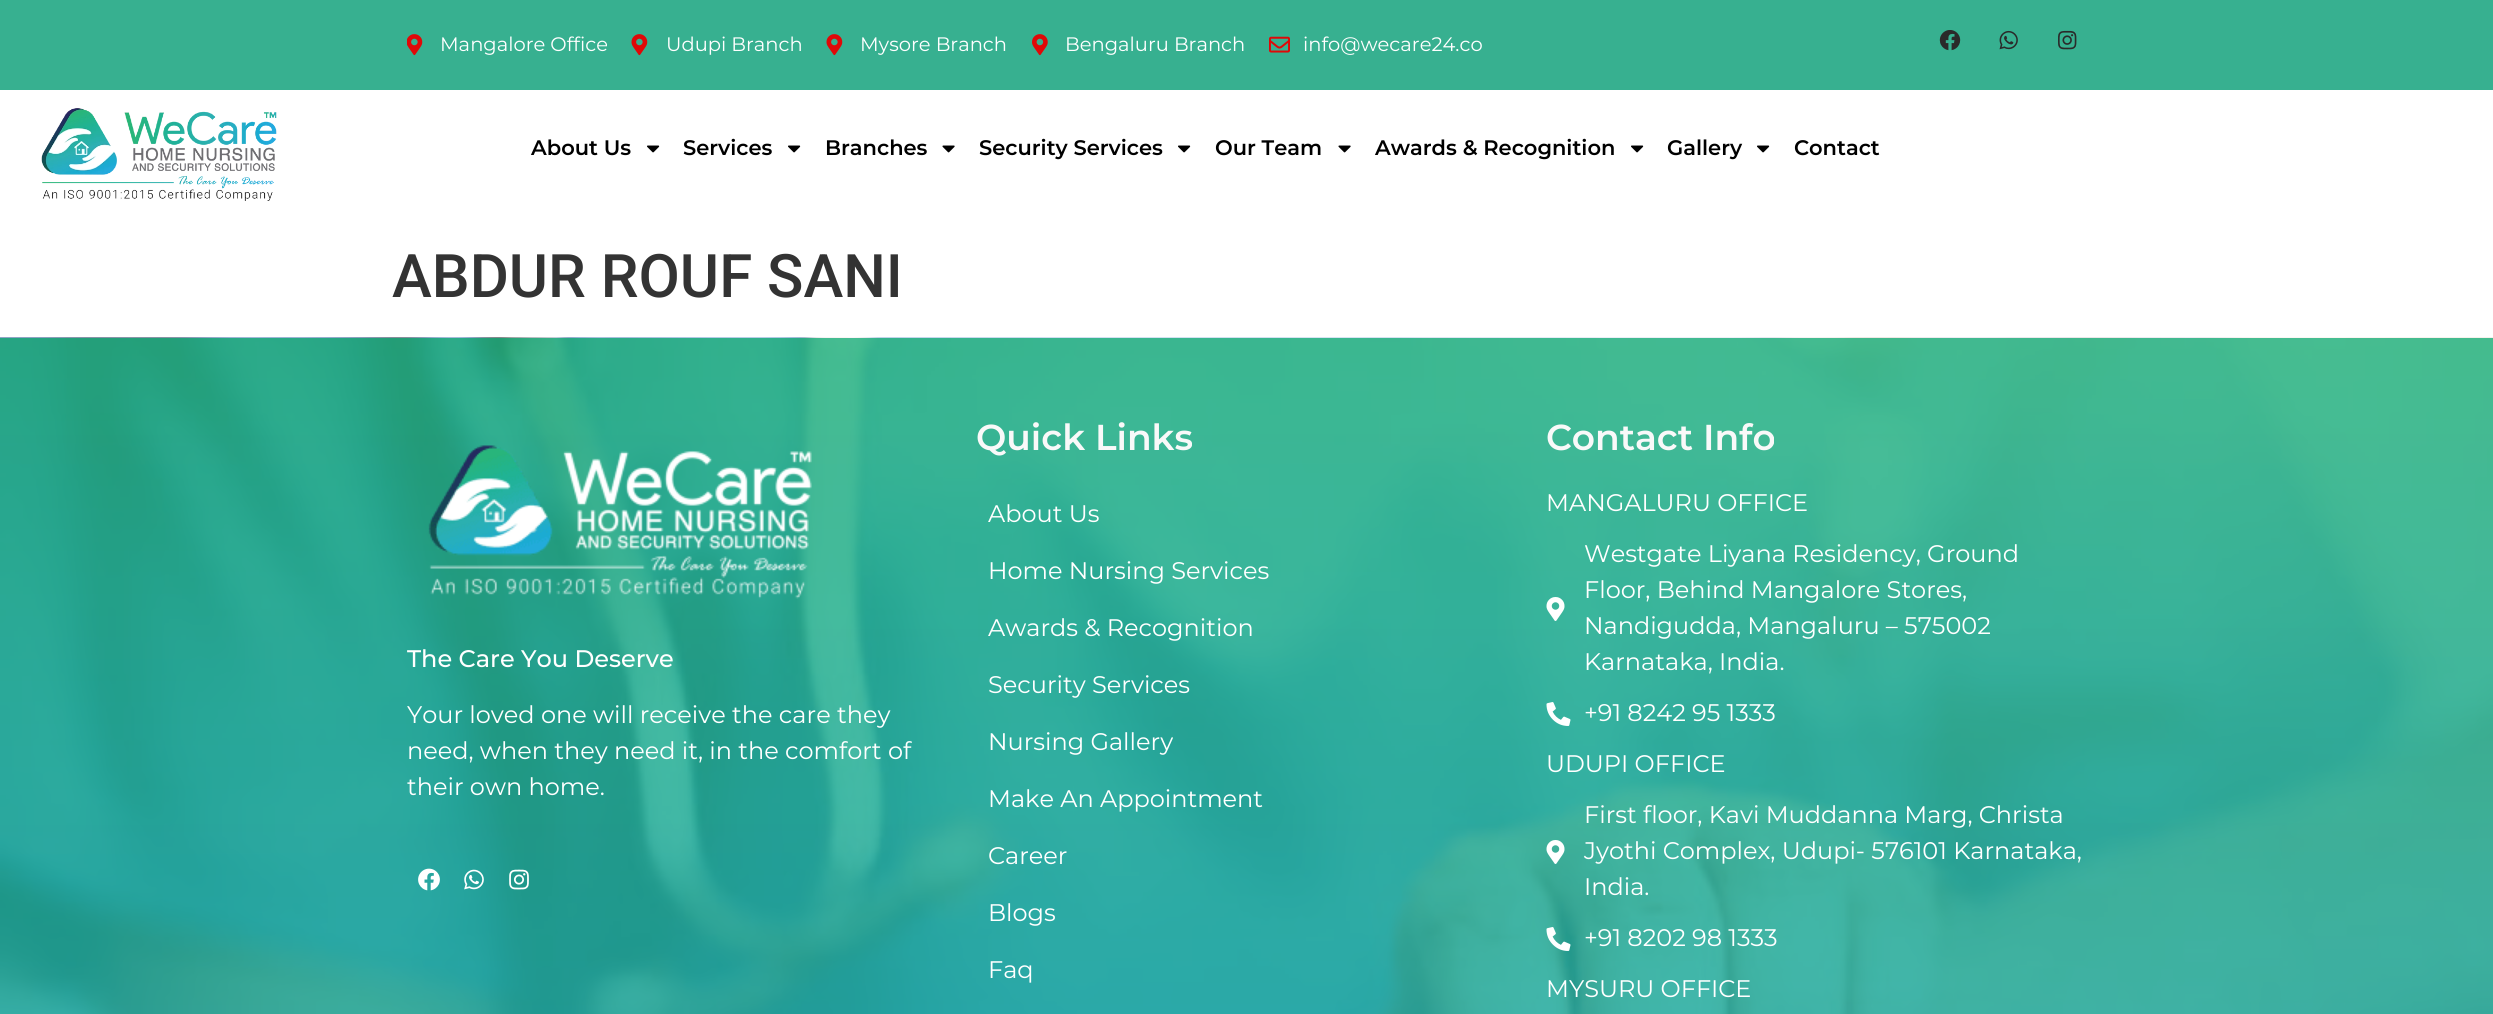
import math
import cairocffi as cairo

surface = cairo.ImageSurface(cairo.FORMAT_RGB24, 2493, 1014)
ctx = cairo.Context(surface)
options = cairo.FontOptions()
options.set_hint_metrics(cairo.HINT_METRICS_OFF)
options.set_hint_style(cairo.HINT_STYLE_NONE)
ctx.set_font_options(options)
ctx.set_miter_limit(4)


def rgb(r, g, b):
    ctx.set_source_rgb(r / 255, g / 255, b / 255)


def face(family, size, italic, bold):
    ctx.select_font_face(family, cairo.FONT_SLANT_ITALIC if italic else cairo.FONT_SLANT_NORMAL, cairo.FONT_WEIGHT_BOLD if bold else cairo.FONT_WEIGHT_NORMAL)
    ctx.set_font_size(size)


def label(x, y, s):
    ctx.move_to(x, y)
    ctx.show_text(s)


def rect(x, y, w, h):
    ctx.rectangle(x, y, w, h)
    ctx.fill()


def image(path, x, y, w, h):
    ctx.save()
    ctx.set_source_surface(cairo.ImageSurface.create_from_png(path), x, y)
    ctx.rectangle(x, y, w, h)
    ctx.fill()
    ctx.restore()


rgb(255, 255, 255)
ctx.paint()
rgb(55, 176, 144)
rect(0, 0, 2493, 90)
image('image0.png', 407, 34, 16, 22)
face('Montserrat', 19.5, 0, 0)
rgb(255, 255, 255)
label(440, 51, 'Mangalore Office')
image('image1.png', 631, 34, 17, 22)
label(666, 51, 'Udupi Branch')
image('image1.png', 826, 34, 17, 22)
label(860, 51, 'Mysore Branch')
image('image2.png', 1032, 34, 16, 22)
label(1065, 51, 'Bengaluru Branch')
image('image3.png', 1269, 36, 21, 17)
label(1303, 51, 'info@wecare24.co')
image('image4.png', 1939, 30, 22, 21)
image('image5.png', 1999, 30, 19, 20)
image('image6.png', 2058, 30, 19, 20)
image('image7.png', 41, 108, 236, 93)
face('Montserrat SemiBold', 21, 0, 0)
rgb(0, 0, 0)
label(531, 155, 'About Us')
image('image8.png', 647, 145, 13, 8)
label(683, 155, 'Services')
image('image8.png', 788, 145, 13, 8)
label(825, 155, 'Branches')
image('image9.png', 942, 145, 13, 8)
label(979, 155, 'Security Services')
image('image8.png', 1178, 145, 13, 8)
label(1215, 155, 'Our Team')
image('image9.png', 1338, 145, 13, 8)
label(1375, 155, 'Awards & Recognition')
image('image8.png', 1631, 145, 13, 8)
label(1667, 155, 'Gallery')
image('image8.png', 1757, 145, 13, 8)
label(1794, 155, 'Contact')
face('Roboto Medium', 60, 0, 0)
rgb(51, 51, 51)
label(392, 297, 'ABDUR ROUF SANI')
image('image10.png', 0, 337, 2493, 677)
image('image11.png', 428, 445, 384, 154)
face('Montserrat Medium', 24, 0, 0)
rgb(255, 255, 255)
label(407, 667, 'The Care You Deserve')
face('Montserrat', 24, 0, 0)
label(407, 723, 'Your loved one will receive the care they')
label(407, 759, 'need, when they need it, in the comfort of')
label(407, 795, 'their own home.')
image('image12.png', 418, 868, 22, 23)
image('image13.png', 464, 869, 20, 21)
image('image14.png', 509, 869, 20, 21)
face('Montserrat SemiBold', 36, 0, 0)
rgb(249, 249, 249)
label(976, 450, 'Quick Links')
face('Montserrat', 24, 0, 0)
rgb(255, 255, 255)
label(988, 522, 'About Us')
label(988, 579, 'Home Nursing Services')
label(988, 636, 'Awards & Recognition')
label(988, 693, 'Security Services')
label(988, 750, 'Nursing Gallery')
label(988, 807, 'Make An Appointment')
label(988, 864, 'Career')
label(988, 921, 'Blogs')
label(988, 978, 'Faq')
face('Montserrat SemiBold', 36, 0, 0)
rgb(249, 249, 249)
label(1546, 450, 'Contact Info')
face('Montserrat', 24, 0, 0)
rgb(255, 255, 255)
label(1546, 511, 'MANGALURU OFFICE')
image('image15.png', 1546, 597, 19, 24)
label(1584, 562, 'Westgate Liyana Residency, Ground')
label(1584, 598, 'Floor, Behind Mangalore Stores,')
label(1584, 634, 'Nandigudda, Mangaluru – 575002')
label(1584, 670, 'Karnataka, India.')
image('image16.png', 1546, 702, 25, 24)
label(1584, 721, '+91 8242 95 1333')
label(1546, 772, 'UDUPI OFFICE')
image('image17.png', 1546, 840, 19, 24)
label(1584, 823, 'First floor, Kavi Muddanna Marg, Christa')
label(1584, 859, 'Jyothi Complex, Udupi- 576101 Karnataka,')
label(1584, 895, 'India.')
image('image18.png', 1546, 927, 25, 24)
label(1584, 946, '+91 8202 98 1333')
label(1546, 997, 'MYSURU OFFICE')
surface.write_to_png('render.png')
